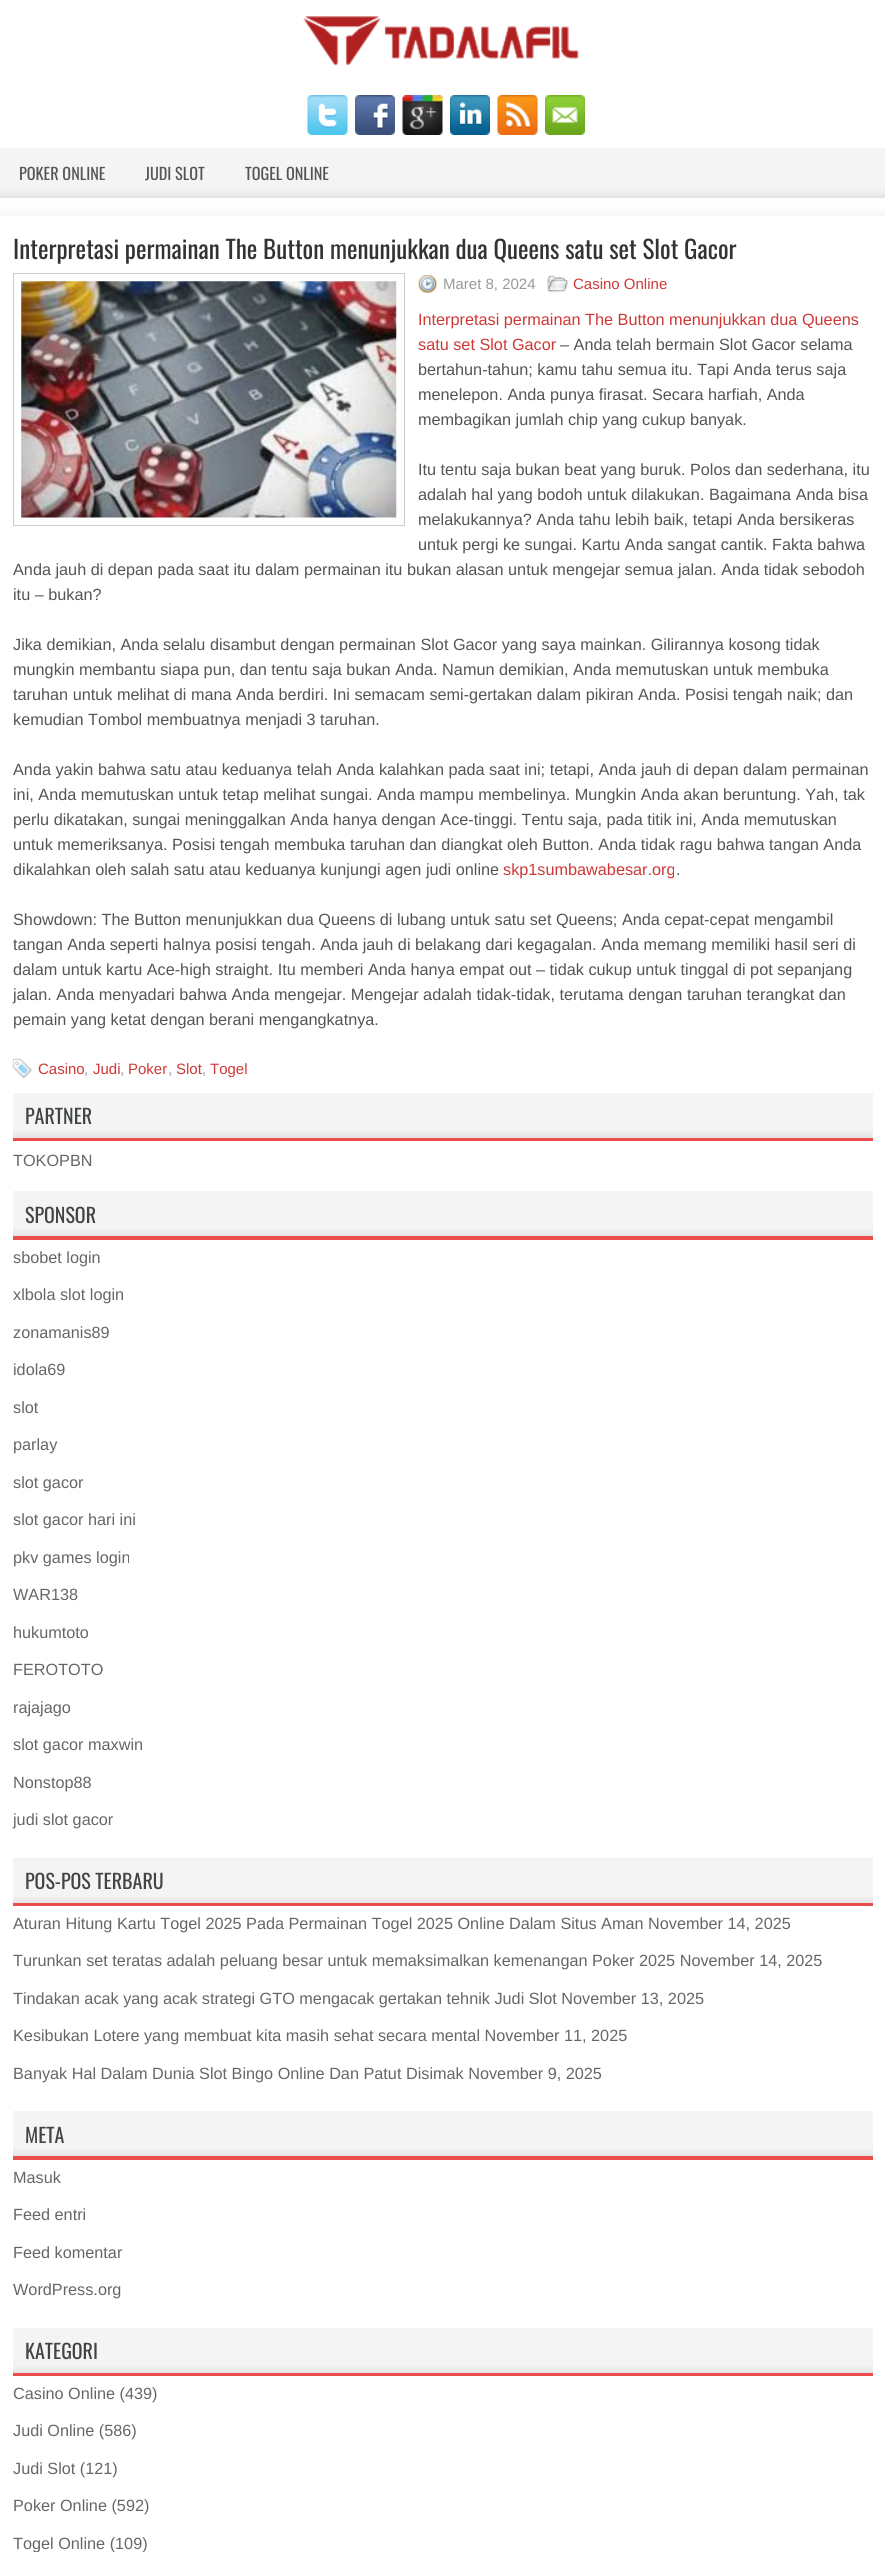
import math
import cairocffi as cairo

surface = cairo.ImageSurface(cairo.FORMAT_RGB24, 885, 2552)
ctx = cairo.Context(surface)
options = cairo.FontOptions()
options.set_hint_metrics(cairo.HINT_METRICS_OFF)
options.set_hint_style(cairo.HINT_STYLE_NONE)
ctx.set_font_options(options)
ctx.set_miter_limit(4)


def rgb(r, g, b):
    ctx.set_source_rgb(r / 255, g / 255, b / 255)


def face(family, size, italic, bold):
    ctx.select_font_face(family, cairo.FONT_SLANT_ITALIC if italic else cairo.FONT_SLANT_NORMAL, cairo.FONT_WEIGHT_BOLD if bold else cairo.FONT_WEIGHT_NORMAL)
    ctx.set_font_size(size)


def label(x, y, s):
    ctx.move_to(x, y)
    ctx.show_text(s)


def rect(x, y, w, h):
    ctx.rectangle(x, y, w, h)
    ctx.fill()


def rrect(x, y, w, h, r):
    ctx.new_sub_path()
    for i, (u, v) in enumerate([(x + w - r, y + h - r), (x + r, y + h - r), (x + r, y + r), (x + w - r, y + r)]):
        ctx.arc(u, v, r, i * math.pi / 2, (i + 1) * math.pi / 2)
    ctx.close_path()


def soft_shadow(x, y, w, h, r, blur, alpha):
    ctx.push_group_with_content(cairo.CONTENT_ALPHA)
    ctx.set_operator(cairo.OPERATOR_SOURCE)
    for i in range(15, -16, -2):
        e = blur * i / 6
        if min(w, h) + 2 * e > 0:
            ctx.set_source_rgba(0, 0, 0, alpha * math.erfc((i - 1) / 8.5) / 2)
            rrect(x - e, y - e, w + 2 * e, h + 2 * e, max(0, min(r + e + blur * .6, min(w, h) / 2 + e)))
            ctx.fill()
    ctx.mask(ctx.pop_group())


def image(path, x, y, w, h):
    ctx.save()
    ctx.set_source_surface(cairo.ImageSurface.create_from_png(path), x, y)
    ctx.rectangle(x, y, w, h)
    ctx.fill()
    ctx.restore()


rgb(255, 255, 255)
ctx.paint()
image('image0.png', 303, 16, 276, 50)
image('image1.png', 307, 95, 41, 40)
image('image2.png', 355, 95, 40, 40)
image('image3.png', 402, 95, 41, 40)
image('image4.png', 450, 95, 40, 40)
image('image5.png', 497, 95, 41, 40)
image('image6.png', 545, 95, 40, 40)
rgb(96, 96, 96)
soft_shadow(-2, 214, 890, 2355, 0, 5.5, 0.1)
gradient = cairo.LinearGradient(443, 198, 443, 148)
gradient.add_color_stop_rgba(0, 0.894, 0.894, 0.894, 1)
gradient.add_color_stop_rgba(0.18, 0.957, 0.957, 0.957, 1)
gradient.add_color_stop_rgba(1, 0.957, 0.957, 0.957, 1)
ctx.set_source(gradient)
rect(0, 148, 885, 50)
face('Oswald', 16.25, 0, 0)
rgb(85, 85, 85)
label(19, 180, 'POKER ONLINE')
label(145, 180, 'JUDI SLOT')
label(245, 180, 'TOGEL ONLINE')
rgb(255, 255, 255)
rect(0, 216, 885, 2336)
face('Oswald', 25, 0, 0)
rgb(51, 51, 51)
label(13, 259, 'Interpretasi permainan The Button menunjukkan dua Queens satu set Slot Gacor')
ctx.rectangle(13.5, 273.5, 391, 252)
rgb(204, 204, 204)
ctx.set_line_width(1)
ctx.stroke()
image('image7.png', 21, 281, 376, 237)
image('image8.png', 418, 274, 19, 19)
face('Liberation Sans', 15, 0, 0)
rgb(153, 153, 153)
label(443, 289, 'Maret 8, 2024')
image('image9.png', 547, 275, 21, 18)
rgb(205, 56, 54)
label(573, 289, 'Casino Online')
face('Liberation Sans', 16.25, 0, 0)
label(418, 325, 'Interpretasi permainan The Button menunjukkan dua Queens')
label(418, 350, 'satu set Slot Gacor')
rgb(85, 85, 85)
label(560, 350, '– Anda telah bermain Slot Gacor selama')
label(418, 375, 'bertahun-tahun; kamu tahu semua itu. Tapi Anda terus saja')
label(418, 400, 'menelepon. Anda punya firasat. Secara harfiah, Anda')
label(418, 425, 'membagikan jumlah chip yang cukup banyak.')
label(418, 475, 'Itu tentu saja bukan beat yang buruk. Polos dan sederhana, itu')
label(418, 500, 'adalah hal yang bodoh untuk dilakukan. Bagaimana Anda bisa')
label(418, 525, 'melakukannya? Anda tahu lebih baik, tetapi Anda bersikeras')
label(418, 550, 'untuk pergi ke sungai. Kartu Anda sangat cantik. Fakta bahwa')
label(13, 575, 'Anda jauh di depan pada saat itu dalam permainan itu bukan alasan untuk mengejar semua jalan. Anda tidak sebodoh')
label(13, 600, 'itu – bukan?')
label(13, 650, 'Jika demikian, Anda selalu disambut dengan permainan Slot Gacor yang saya mainkan. Gilirannya kosong tidak')
label(13, 675, 'mungkin membantu siapa pun, dan tentu saja bukan Anda. Namun demikian, Anda memutuskan untuk membuka')
label(13, 700, 'taruhan untuk melihat di mana Anda berdiri. Ini semacam semi-gertakan dalam pikiran Anda. Posisi tengah naik; dan')
label(13, 725, 'kemudian Tombol membuatnya menjadi 3 taruhan.')
label(13, 775, 'Anda yakin bahwa satu atau keduanya telah Anda kalahkan pada saat ini; tetapi, Anda jauh di depan dalam permainan')
label(13, 800, 'ini, Anda memutuskan untuk tetap melihat sungai. Anda mampu membelinya. Mungkin Anda akan beruntung. Yah, tak')
label(13, 825, 'perlu dikatakan, sungai meninggalkan Anda hanya dengan Ace-tinggi. Tentu saja, pada titik ini, Anda memutuskan')
label(13, 850, 'untuk memeriksanya. Posisi tengah membuka taruhan dan diangkat oleh Button. Anda tidak ragu bahwa tangan Anda')
label(13, 875, 'dikalahkan oleh salah satu atau keduanya kunjungi agen judi online')
rgb(205, 56, 54)
label(503, 875, 'skp1sumbawabesar.org')
rgb(85, 85, 85)
label(676, 875, '.')
label(13, 925, 'Showdown: The Button menunjukkan dua Queens di lubang untuk satu set Queens; Anda cepat-cepat mengambil')
label(13, 950, 'tangan Anda seperti halnya posisi tengah. Anda jauh di belakang dari kegagalan. Anda memang memiliki hasil seri di')
label(13, 975, 'dalam untuk kartu Ace-high straight. Itu memberi Anda hanya empat out – tidak cukup untuk tinggal di pot sepanjang')
label(13, 1000, 'jalan. Anda menyadari bahwa Anda mengejar. Mengejar adalah tidak-tidak, terutama dengan taruhan terangkat dan')
label(13, 1025, 'pemain yang ketat dengan berani mengangkatnya.')
image('image10.png', 12, 1058, 21, 21)
face('Liberation Sans', 15, 0, 0)
rgb(205, 56, 54)
label(38, 1074, 'Casino')
rgb(153, 153, 153)
label(84, 1074, ',')
rgb(205, 56, 54)
label(93, 1074, 'Judi')
rgb(153, 153, 153)
label(120, 1074, ',')
rgb(205, 56, 54)
label(128, 1074, 'Poker')
rgb(153, 153, 153)
label(168, 1074, ',')
rgb(205, 56, 54)
label(176, 1074, 'Slot')
rgb(153, 153, 153)
label(202, 1074, ',')
rgb(205, 56, 54)
label(210, 1074, 'Togel')
rgb(235, 77, 77)
ctx.new_path()
ctx.move_to(13, 1138)
ctx.line_to(13, 1141)
ctx.line_to(873, 1141)
ctx.line_to(873, 1096)
ctx.line_to(872, 1096)
ctx.line_to(872, 1138)
ctx.close_path()
ctx.fill()
gradient = cairo.LinearGradient(443, 1138, 443, 1093)
gradient.add_color_stop_rgba(0, 0.894, 0.894, 0.894, 1)
gradient.add_color_stop_rgba(0.18, 0.957, 0.957, 0.957, 1)
gradient.add_color_stop_rgba(1, 0.957, 0.957, 0.957, 1)
ctx.set_source(gradient)
rect(13, 1093, 860, 45)
face('Oswald', 20, 0, 0)
rgb(65, 68, 69)
label(25, 1124, 'PARTNER')
face('Liberation Sans', 16.25, 0, 0)
rgb(102, 102, 102)
label(13, 1166, 'TOKOPBN')
rgb(235, 77, 77)
ctx.new_path()
ctx.move_to(13, 1236)
ctx.line_to(13, 1240)
ctx.line_to(873, 1240)
ctx.line_to(873, 1195)
ctx.line_to(872, 1195)
ctx.line_to(872, 1236)
ctx.close_path()
ctx.fill()
gradient = cairo.LinearGradient(443, 1236, 443, 1191)
gradient.add_color_stop_rgba(0, 0.894, 0.894, 0.894, 1)
gradient.add_color_stop_rgba(0.18, 0.957, 0.957, 0.957, 1)
gradient.add_color_stop_rgba(1, 0.957, 0.957, 0.957, 1)
ctx.set_source(gradient)
rect(13, 1191, 860, 45)
face('Oswald', 20, 0, 0)
rgb(65, 68, 69)
label(25, 1223, 'SPONSOR')
face('Liberation Sans', 16.25, 0, 0)
rgb(102, 102, 102)
label(13, 1263, 'sbobet login')
label(13, 1300, 'xlbola slot login')
label(13, 1338, 'zonamanis89')
label(13, 1375, 'idola69')
label(13, 1413, 'slot')
label(13, 1450, 'parlay')
label(13, 1488, 'slot gacor')
label(13, 1525, 'slot gacor hari ini')
label(13, 1563, 'pkv games login')
label(13, 1600, 'WAR138')
label(13, 1638, 'hukumtoto')
label(13, 1675, 'FEROTOTO')
label(13, 1713, 'rajajago')
label(13, 1750, 'slot gacor maxwin')
label(13, 1788, 'Nonstop88')
label(13, 1825, 'judi slot gacor')
rgb(235, 77, 77)
ctx.new_path()
ctx.move_to(13, 1902)
ctx.line_to(13, 1906)
ctx.line_to(873, 1906)
ctx.line_to(873, 1861)
ctx.line_to(872, 1861)
ctx.line_to(872, 1902)
ctx.close_path()
ctx.fill()
gradient = cairo.LinearGradient(443, 1903, 443, 1858)
gradient.add_color_stop_rgba(0, 0.894, 0.894, 0.894, 1)
gradient.add_color_stop_rgba(0.18, 0.957, 0.957, 0.957, 1)
gradient.add_color_stop_rgba(1, 0.957, 0.957, 0.957, 1)
ctx.set_source(gradient)
rect(13, 1858, 860, 45)
face('Oswald', 20, 0, 0)
rgb(65, 68, 69)
label(25, 1889, 'POS-POS TERBARU')
face('Liberation Sans', 16.25, 0, 0)
rgb(102, 102, 102)
label(13, 1929, 'Aturan Hitung Kartu Togel 2025 Pada Permainan Togel 2025 Online Dalam Situs Aman November 14, 2025')
label(13, 1966, 'Turunkan set teratas adalah peluang besar untuk memaksimalkan kemenangan Poker 2025 November 14, 2025')
label(13, 2004, 'Tindakan acak yang acak strategi GTO mengacak gertakan tehnik Judi Slot November 13, 2025')
label(13, 2041, 'Kesibukan Lotere yang membuat kita masih sehat secara mental November 11, 2025')
label(13, 2079, 'Banyak Hal Dalam Dunia Slot Bingo Online Dan Patut Disimak November 9, 2025')
rgb(235, 77, 77)
ctx.new_path()
ctx.move_to(13, 2156)
ctx.line_to(13, 2160)
ctx.line_to(873, 2160)
ctx.line_to(873, 2115)
ctx.line_to(872, 2115)
ctx.line_to(872, 2156)
ctx.close_path()
ctx.fill()
gradient = cairo.LinearGradient(443, 2156, 443, 2111)
gradient.add_color_stop_rgba(0, 0.894, 0.894, 0.894, 1)
gradient.add_color_stop_rgba(0.18, 0.957, 0.957, 0.957, 1)
gradient.add_color_stop_rgba(1, 0.957, 0.957, 0.957, 1)
ctx.set_source(gradient)
rect(13, 2111, 860, 45)
face('Oswald', 20, 0, 0)
rgb(65, 68, 69)
label(25, 2143, 'META')
face('Liberation Sans', 16.25, 0, 0)
rgb(102, 102, 102)
label(13, 2183, 'Masuk')
label(13, 2220, 'Feed entri')
label(13, 2258, 'Feed komentar')
label(13, 2295, 'WordPress.org')
rgb(235, 77, 77)
ctx.new_path()
ctx.move_to(13, 2372)
ctx.line_to(13, 2376)
ctx.line_to(873, 2376)
ctx.line_to(873, 2331)
ctx.line_to(872, 2331)
ctx.line_to(872, 2372)
ctx.close_path()
ctx.fill()
gradient = cairo.LinearGradient(443, 2373, 443, 2328)
gradient.add_color_stop_rgba(0, 0.894, 0.894, 0.894, 1)
gradient.add_color_stop_rgba(0.18, 0.957, 0.957, 0.957, 1)
gradient.add_color_stop_rgba(1, 0.957, 0.957, 0.957, 1)
ctx.set_source(gradient)
rect(13, 2328, 860, 45)
face('Oswald', 20, 0, 0)
rgb(65, 68, 69)
label(25, 2359, 'KATEGORI')
face('Liberation Sans', 16.25, 0, 0)
rgb(102, 102, 102)
label(13, 2399, 'Casino Online (439)')
label(13, 2436, 'Judi Online (586)')
label(13, 2474, 'Judi Slot (121)')
label(13, 2511, 'Poker Online (592)')
label(13, 2549, 'Togel Online (109)')
surface.write_to_png('render.png')
